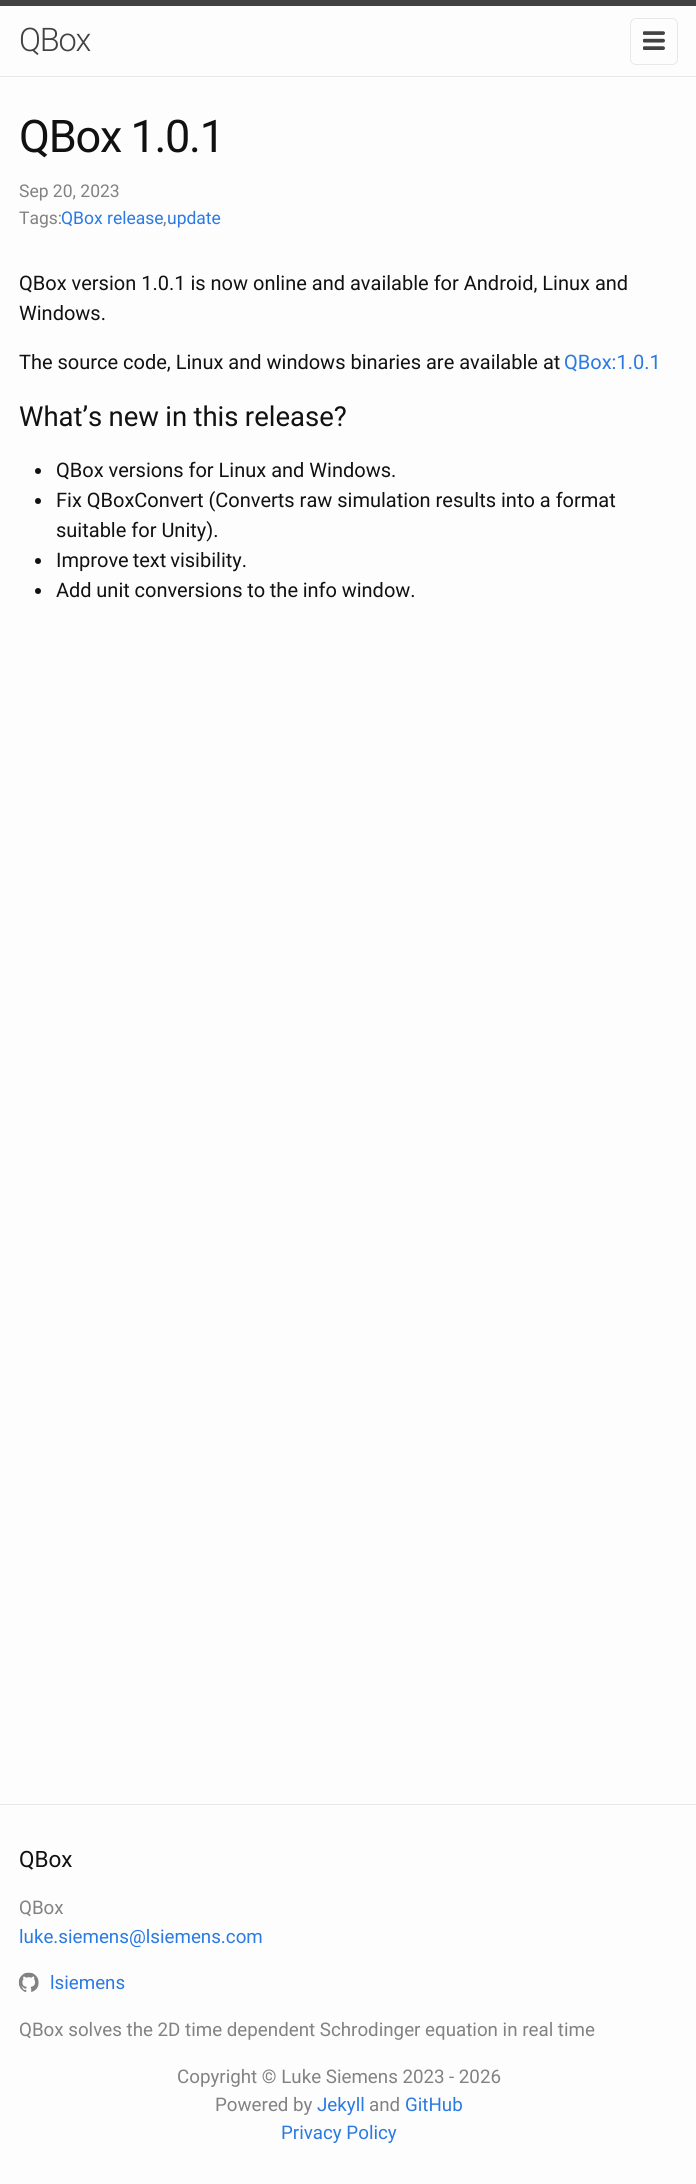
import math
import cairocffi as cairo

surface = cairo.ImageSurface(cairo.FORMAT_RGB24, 696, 2184)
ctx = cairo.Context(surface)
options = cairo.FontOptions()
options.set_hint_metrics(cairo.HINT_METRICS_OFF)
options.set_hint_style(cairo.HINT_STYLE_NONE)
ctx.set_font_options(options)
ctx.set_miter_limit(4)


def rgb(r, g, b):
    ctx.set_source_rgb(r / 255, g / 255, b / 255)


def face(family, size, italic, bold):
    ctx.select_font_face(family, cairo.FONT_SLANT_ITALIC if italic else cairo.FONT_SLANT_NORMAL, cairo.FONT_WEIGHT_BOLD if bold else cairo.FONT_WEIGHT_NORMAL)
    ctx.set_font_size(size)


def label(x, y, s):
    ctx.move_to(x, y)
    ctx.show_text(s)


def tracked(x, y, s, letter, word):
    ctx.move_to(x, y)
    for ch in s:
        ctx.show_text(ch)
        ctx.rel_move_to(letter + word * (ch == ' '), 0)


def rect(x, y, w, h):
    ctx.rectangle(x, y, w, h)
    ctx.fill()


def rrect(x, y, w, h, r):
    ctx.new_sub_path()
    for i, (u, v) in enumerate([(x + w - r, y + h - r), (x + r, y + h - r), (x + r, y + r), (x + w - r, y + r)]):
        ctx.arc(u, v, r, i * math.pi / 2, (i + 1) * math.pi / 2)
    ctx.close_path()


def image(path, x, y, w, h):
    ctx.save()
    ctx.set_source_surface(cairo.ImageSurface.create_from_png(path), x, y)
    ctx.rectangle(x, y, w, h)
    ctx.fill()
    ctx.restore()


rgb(253, 253, 253)
ctx.paint()
rgb(66, 66, 66)
rect(0, 0, 696, 6)
rgb(232, 232, 232)
rect(0, 76, 696, 1)
face('Roboto Light', 32.5, 0, 0)
rgb(66, 66, 66)
tracked(19, 51, 'QBox', -1.25, 0)
rrect(630.5, 18.5, 47, 46, 5.5)
rgb(232, 232, 232)
ctx.set_line_width(1)
ctx.stroke()
image('image0.png', 643, 31, 22, 19)
face('Roboto', 45, 0, 0)
rgb(17, 17, 17)
tracked(19, 152, 'QBox 1.0.1', -1.25, -0.5)
face('Roboto', 17.5, 0, 0)
rgb(130, 130, 130)
label(19, 197, 'Sep 20, 2023')
label(19, 224, 'Tags:')
rgb(42, 122, 226)
label(61, 224, 'QBox release')
rgb(130, 130, 130)
label(163, 224, ',')
rgb(42, 122, 226)
label(167, 224, 'update')
face('Roboto', 20, 0, 0)
rgb(17, 17, 17)
label(19, 290, 'QBox version 1.0.1 is now online and available for Android, Linux and')
label(19, 320, 'Windows.')
label(19, 369, 'The source code, Linux and windows binaries are available at')
rgb(42, 122, 226)
label(564, 369, 'QBox:1.0.1')
face('Roboto', 27.5, 0, 0)
rgb(17, 17, 17)
tracked(19, 426, 'What’s new in this release?', 0, -0.5)
ctx.new_path()
ctx.arc(38, 471, 3, 0, 2 * math.pi)
ctx.fill()
face('Roboto', 20, 0, 0)
label(56, 477, 'QBox versions for Linux and Windows.')
ctx.new_path()
ctx.arc(38, 501, 3, 0, 2 * math.pi)
ctx.fill()
label(56, 507, 'Fix QBoxConvert (Converts raw simulation results into a format')
label(56, 537, 'suitable for Unity).')
ctx.new_path()
ctx.arc(38, 561, 3, 0, 2 * math.pi)
ctx.fill()
tracked(56, 567, 'Improve text visibility.', 0, -1)
ctx.new_path()
ctx.arc(38, 591, 3, 0, 2 * math.pi)
ctx.fill()
tracked(56, 597, 'Add unit conversions to the info window.', 0, -0.25)
rgb(232, 232, 232)
rect(0, 1804, 696, 1)
face('Roboto', 22.5, 0, 0)
rgb(17, 17, 17)
label(19, 1867, 'QBox')
face('Roboto', 18.75, 0, 0)
rgb(130, 130, 130)
label(19, 1914, 'QBox')
rgb(42, 122, 226)
label(19, 1943, 'luke.siemens@lsiemens.com')
image('image1.png', 18, 1972, 21, 20)
label(50, 1989, 'lsiemens')
rgb(130, 130, 130)
label(19, 2036, 'QBox solves the 2D time dependent Schrodinger equation in real time')
label(177, 2083, 'Copyright © Luke Siemens 2023')
label(449, 2083, '- 2026')
label(215, 2111, 'Powered by')
rgb(42, 122, 226)
label(317, 2111, 'Jekyll')
rgb(130, 130, 130)
label(369, 2111, 'and')
rgb(42, 122, 226)
label(405, 2111, 'GitHub')
label(281, 2139, 'Privacy Policy')
surface.write_to_png('render.png')
